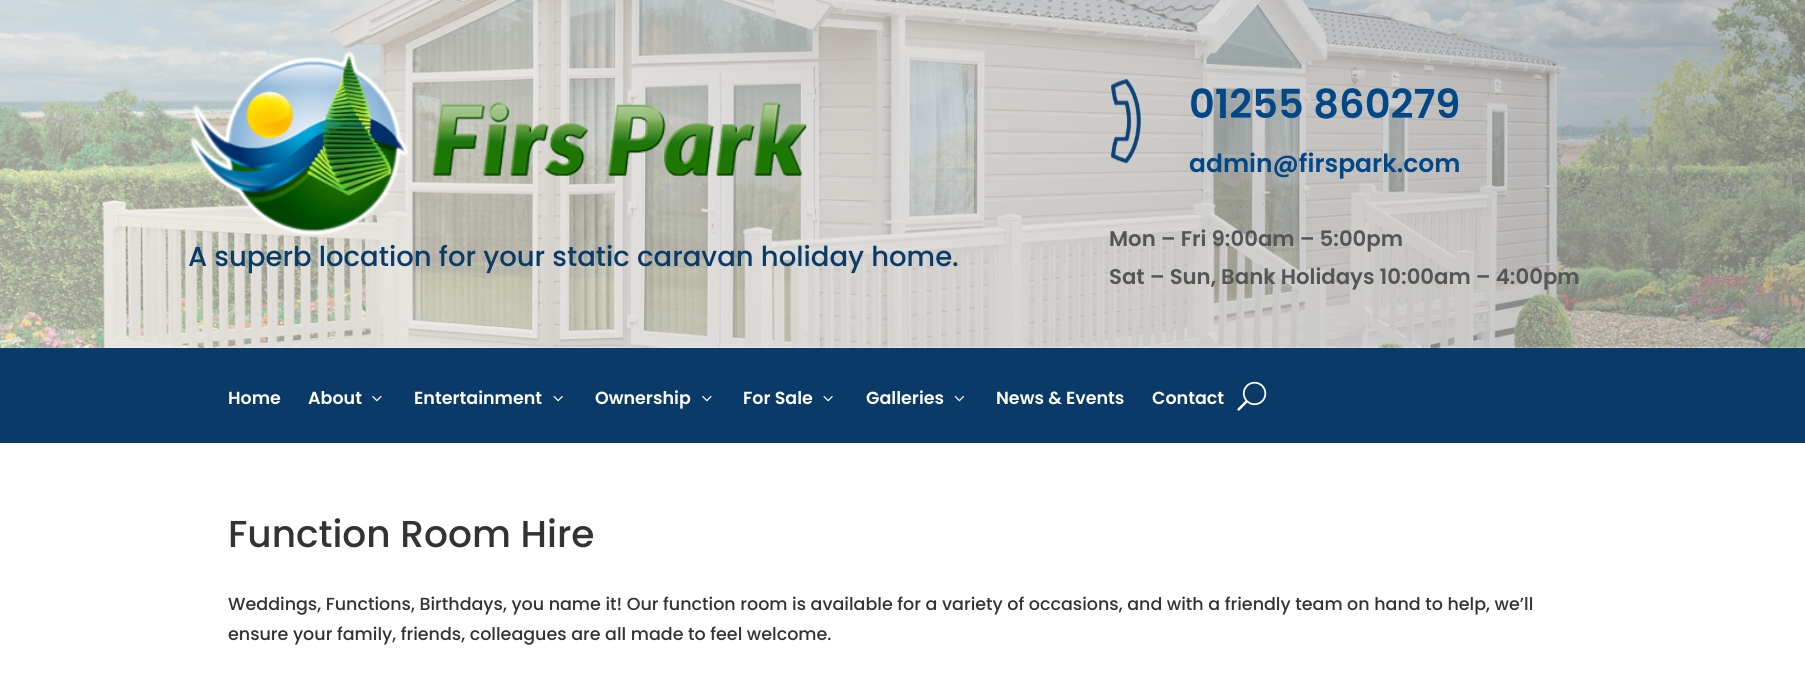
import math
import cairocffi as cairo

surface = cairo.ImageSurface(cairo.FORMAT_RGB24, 1805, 675)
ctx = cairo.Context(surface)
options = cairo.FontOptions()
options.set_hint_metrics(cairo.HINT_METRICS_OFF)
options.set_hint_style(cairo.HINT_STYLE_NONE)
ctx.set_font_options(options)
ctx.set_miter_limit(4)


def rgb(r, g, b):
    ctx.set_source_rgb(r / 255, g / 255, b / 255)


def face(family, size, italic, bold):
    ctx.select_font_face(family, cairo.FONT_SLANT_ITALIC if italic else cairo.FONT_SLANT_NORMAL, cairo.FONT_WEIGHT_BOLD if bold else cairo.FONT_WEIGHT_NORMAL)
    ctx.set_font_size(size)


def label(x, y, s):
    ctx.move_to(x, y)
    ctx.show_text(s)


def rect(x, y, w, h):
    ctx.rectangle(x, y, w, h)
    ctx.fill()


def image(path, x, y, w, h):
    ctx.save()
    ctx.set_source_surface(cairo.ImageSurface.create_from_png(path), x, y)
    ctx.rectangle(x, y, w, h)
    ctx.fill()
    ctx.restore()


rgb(255, 255, 255)
ctx.paint()
image('image0.png', 0, 0, 1805, 348)
image('image1.png', 189, 51, 618, 184)
face('Poppins Medium', 27.5, 0, 0)
rgb(9, 58, 104)
label(188, 266, 'A superb location for your static caravan holiday home.')
image('image2.png', 1111, 79, 30, 85)
face('Poppins SemiBold', 40, 0, 0)
rgb(2, 71, 135)
label(1189, 118, '01255 860279')
face('Poppins SemiBold', 25, 0, 0)
label(1189, 172, 'admin@firspark.com')
face('Poppins SemiBold', 21.25, 0, 0)
rgb(85, 85, 85)
label(1109, 246, 'Mon – Fri 9:00am – 5:00pm')
label(1109, 284, 'Sat – Sun, Bank Holidays 10:00am – 4:00pm')
rgb(9, 58, 104)
rect(0, 348, 1805, 95)
face('Poppins SemiBold', 17.5, 0, 0)
rgb(255, 255, 255)
label(228, 404, 'Home')
label(308, 404, 'About')
image('image3.png', 372, 396, 10, 6)
label(414, 404, 'Entertainment')
image('image4.png', 553, 396, 10, 6)
label(595, 404, 'Ownership')
image('image3.png', 702, 396, 10, 6)
label(743, 404, 'For Sale')
image('image4.png', 823, 396, 10, 6)
label(866, 404, 'Galleries')
image('image5.png', 954, 396, 10, 6)
label(996, 404, 'News & Events')
label(1152, 404, 'Contact')
image('image6.png', 1237, 381, 30, 30)
face('Poppins Medium', 37.5, 0, 0)
rgb(51, 51, 51)
label(228, 547, 'Function Room Hire')
face('Poppins Medium', 17.5, 0, 0)
label(228, 610, 'Weddings, Functions, Birthdays, you name it! Our function room is available for a variety of occasions, and with a friendly team on hand to help, we’ll')
label(228, 640, 'ensure your family, friends, colleagues are all made to feel welcome.')
surface.write_to_png('render.png')
